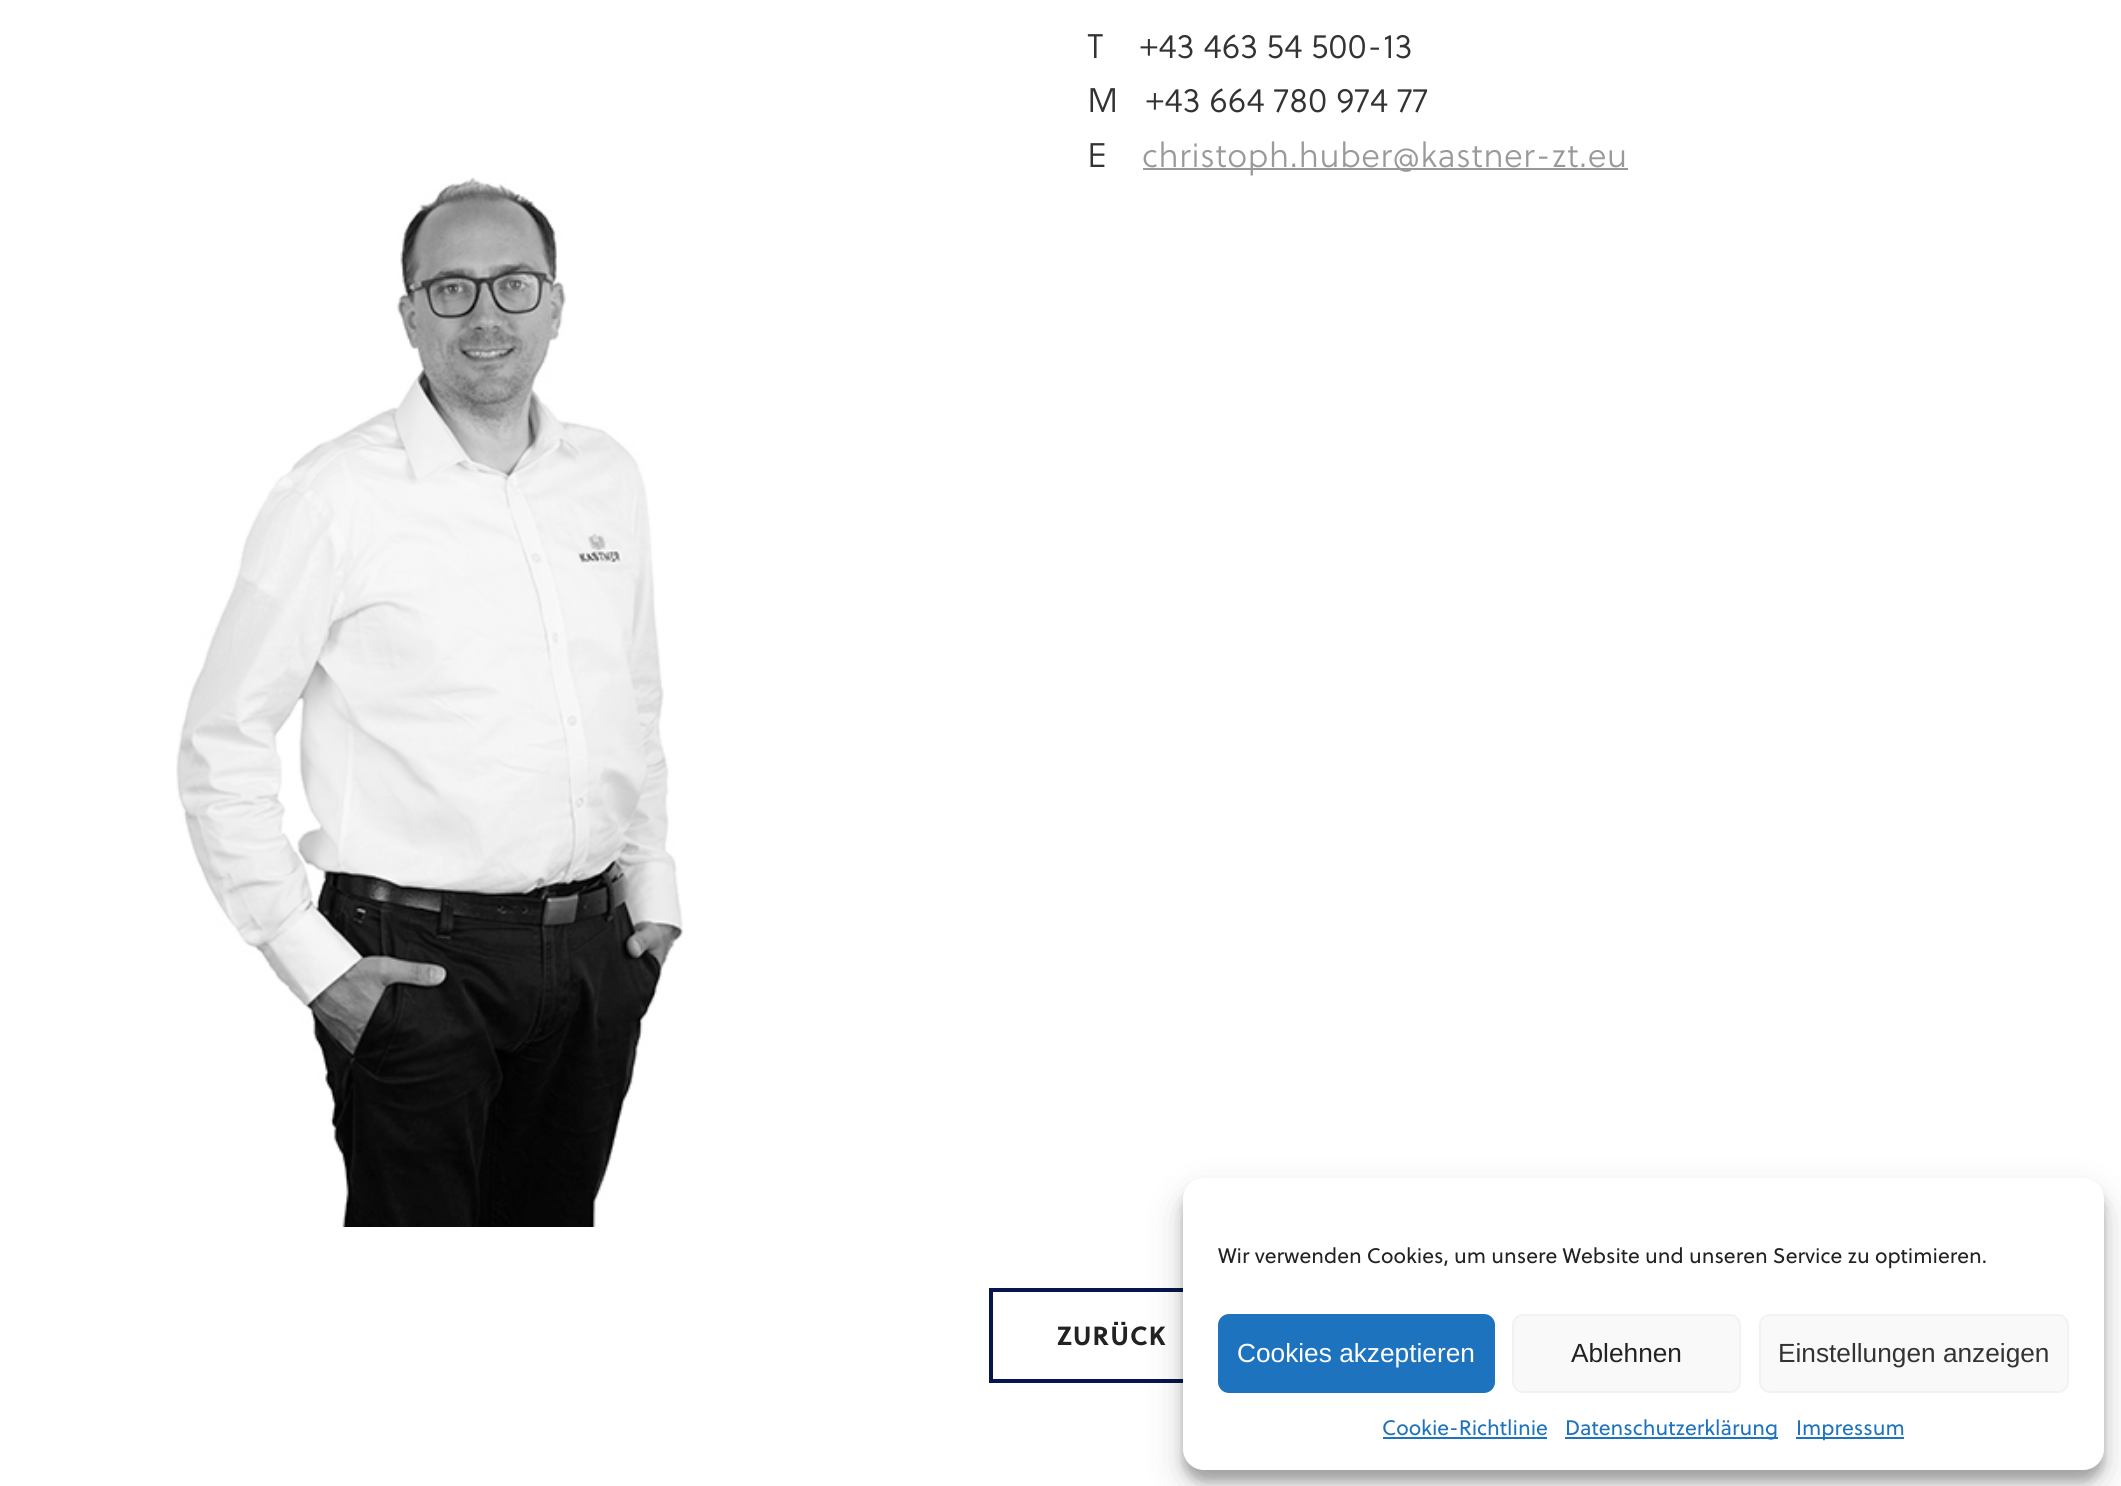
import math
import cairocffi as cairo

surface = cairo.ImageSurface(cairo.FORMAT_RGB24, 2121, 1486)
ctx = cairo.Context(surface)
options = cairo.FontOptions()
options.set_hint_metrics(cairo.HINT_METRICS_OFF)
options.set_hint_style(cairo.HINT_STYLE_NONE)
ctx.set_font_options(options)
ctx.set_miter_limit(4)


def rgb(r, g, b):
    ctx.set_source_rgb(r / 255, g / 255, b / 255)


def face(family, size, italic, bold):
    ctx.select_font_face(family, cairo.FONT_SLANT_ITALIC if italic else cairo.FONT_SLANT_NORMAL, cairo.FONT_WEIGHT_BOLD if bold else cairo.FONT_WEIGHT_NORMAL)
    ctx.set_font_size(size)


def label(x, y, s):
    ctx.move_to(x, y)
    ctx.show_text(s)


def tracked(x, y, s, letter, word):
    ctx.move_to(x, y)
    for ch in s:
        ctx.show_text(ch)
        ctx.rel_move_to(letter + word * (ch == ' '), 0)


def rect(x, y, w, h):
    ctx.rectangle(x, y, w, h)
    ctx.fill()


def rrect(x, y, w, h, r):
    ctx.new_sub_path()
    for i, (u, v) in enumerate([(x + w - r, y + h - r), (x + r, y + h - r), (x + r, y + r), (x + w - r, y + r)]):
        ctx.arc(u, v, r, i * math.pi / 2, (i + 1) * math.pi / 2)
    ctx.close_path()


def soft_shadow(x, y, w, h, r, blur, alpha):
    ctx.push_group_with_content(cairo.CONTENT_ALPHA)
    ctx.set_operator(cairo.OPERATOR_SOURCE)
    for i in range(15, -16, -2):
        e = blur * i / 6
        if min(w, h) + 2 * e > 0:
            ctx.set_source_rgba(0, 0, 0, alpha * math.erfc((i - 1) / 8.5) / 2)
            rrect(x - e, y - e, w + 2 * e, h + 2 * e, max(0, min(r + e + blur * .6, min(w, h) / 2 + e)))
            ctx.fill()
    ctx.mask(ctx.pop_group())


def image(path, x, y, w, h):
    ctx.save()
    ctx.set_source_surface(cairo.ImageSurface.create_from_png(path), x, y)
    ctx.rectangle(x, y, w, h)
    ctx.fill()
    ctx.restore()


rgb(255, 255, 255)
ctx.paint()
face('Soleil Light', 34.1, 0, 0)
rgb(51, 51, 51)
tracked(1087, 58, 'T    +43 463 54 500-13', 0.35, 0)
tracked(1087, 112, 'M   +43 664 780 974 77', 0.35, 0)
tracked(1087, 167, 'E', 0.35, 0)
rgb(153, 153, 153)
rect(1143, 168, 485, 2)
tracked(1142, 167, 'christoph.huber@kastner-zt.eu', 0.35, 0)
image('image0.png', 176, 177, 507, 1050)
ctx.rectangle(991, 1290, 241, 91)
rgb(5, 22, 77)
ctx.set_line_width(4)
ctx.stroke()
face('Soleil', 26.25, 0, 1)
rgb(34, 34, 34)
tracked(1057, 1345, 'ZURÜCK', 1, 0)
rgb(0, 0, 0)
soft_shadow(1183, 1188, 921, 293, 21, 5, 0.23)
soft_shadow(1183, 1195, 921, 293, 21, 17.5, 0.19)
rgb(255, 255, 255)
rrect(1183, 1178, 921, 292, 21)
ctx.fill()
face('Soleil', 21, 0, 0)
rgb(34, 34, 34)
label(1218, 1263, 'Wir verwenden Cookies, um unsere Website und unseren Service zu optimieren.')
rgb(30, 115, 190)
rrect(1219, 1315, 275, 77, 10)
ctx.fill_preserve()
ctx.set_line_width(2)
ctx.stroke()
face('Liberation Sans', 26.25, 0, 0)
rgb(255, 255, 255)
label(1237, 1362, 'Cookies akzeptieren')
rgb(249, 249, 249)
rrect(1513, 1315, 227, 77, 10)
ctx.fill_preserve()
rgb(242, 242, 242)
ctx.stroke()
rgb(34, 34, 34)
label(1571, 1362, 'Ablehnen')
rgb(249, 249, 249)
rrect(1760, 1315, 308, 77, 10)
ctx.fill_preserve()
rgb(242, 242, 242)
ctx.stroke()
rgb(51, 51, 51)
label(1778, 1362, 'Einstellungen anzeigen')
face('Soleil', 21, 0, 0)
rgb(30, 115, 190)
label(1382, 1435, 'Cookie-Richtlinie')
rect(1383, 1437, 164, 2)
rect(1565, 1437, 213, 2)
label(1565, 1435, 'Datenschutzerklärung')
rect(1796, 1437, 108, 2)
label(1796, 1435, 'Impressum')
surface.write_to_png('render.png')
